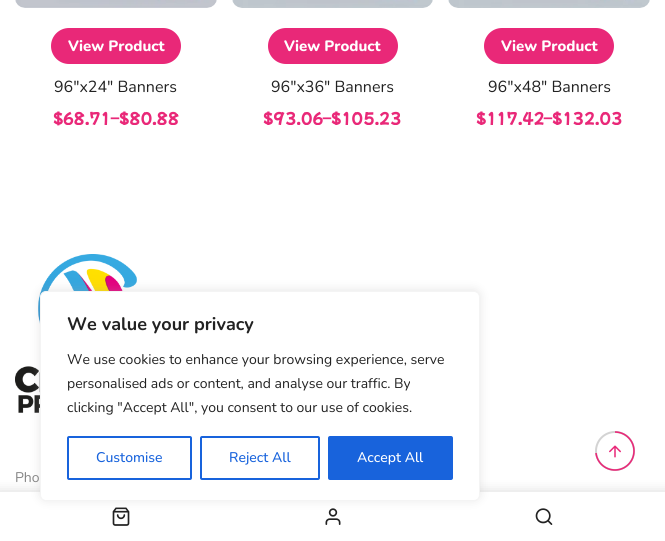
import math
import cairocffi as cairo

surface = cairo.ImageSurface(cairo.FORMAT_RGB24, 665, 541)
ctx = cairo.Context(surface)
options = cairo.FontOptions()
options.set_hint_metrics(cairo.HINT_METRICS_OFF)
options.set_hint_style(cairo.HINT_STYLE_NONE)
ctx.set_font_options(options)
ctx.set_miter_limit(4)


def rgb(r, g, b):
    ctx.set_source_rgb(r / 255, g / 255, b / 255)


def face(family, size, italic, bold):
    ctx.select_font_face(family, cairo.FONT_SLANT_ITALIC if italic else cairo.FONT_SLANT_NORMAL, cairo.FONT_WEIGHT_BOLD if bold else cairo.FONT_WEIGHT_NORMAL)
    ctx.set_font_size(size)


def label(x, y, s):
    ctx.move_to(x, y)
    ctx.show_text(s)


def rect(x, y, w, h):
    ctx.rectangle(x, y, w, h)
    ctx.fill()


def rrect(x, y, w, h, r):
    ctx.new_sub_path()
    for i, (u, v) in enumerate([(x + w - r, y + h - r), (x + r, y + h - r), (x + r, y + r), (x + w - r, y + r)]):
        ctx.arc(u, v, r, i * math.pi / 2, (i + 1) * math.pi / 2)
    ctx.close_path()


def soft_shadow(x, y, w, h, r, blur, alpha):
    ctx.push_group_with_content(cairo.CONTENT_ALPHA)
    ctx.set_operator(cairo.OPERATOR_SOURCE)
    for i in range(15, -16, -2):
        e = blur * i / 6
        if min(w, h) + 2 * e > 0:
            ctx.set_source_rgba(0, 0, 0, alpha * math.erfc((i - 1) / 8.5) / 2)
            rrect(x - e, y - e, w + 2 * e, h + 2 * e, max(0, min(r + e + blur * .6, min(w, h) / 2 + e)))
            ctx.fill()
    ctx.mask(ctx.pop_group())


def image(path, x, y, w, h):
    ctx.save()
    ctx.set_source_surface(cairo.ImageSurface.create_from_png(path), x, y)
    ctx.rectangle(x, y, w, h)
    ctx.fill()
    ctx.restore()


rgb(255, 255, 255)
ctx.paint()
image('image0.png', 15, 0, 202, 8)
rgb(233, 40, 120)
rrect(51, 28, 130, 36, 18)
ctx.fill()
face('Nunito ExtraBold', 15, 0, 0)
rgb(255, 255, 255)
label(68, 51, 'View Product')
face('Nunito', 16, 0, 0)
rgb(34, 34, 34)
label(54, 92, '96″x24″ Banners')
face('Mochiy Pop P One', 15, 0, 0)
rgb(233, 40, 120)
label(53, 124, '$')
ctx.save()
ctx.rectangle(53, 110, 126, 15)
ctx.clip()
label(63, 124, '68.71')
ctx.restore()
label(111, 124, '–')
ctx.save()
ctx.rectangle(53, 110, 126, 15)
ctx.clip()
label(119, 124, '$80.88')
ctx.restore()
image('image1.png', 232, 0, 201, 8)
rrect(268, 28, 130, 36, 18)
ctx.fill()
face('Nunito ExtraBold', 15, 0, 0)
rgb(255, 255, 255)
label(284, 51, 'View Product')
face('Nunito', 16, 0, 0)
rgb(34, 34, 34)
label(271, 92, '96″x36″ Banners')
ctx.save()
ctx.rectangle(263, 110, 139, 15)
ctx.clip()
face('Mochiy Pop P One', 15, 0, 0)
rgb(233, 40, 120)
label(263, 124, '$93.06')
ctx.restore()
face('Mochiy Pop P One', 15, 0, 0)
rgb(233, 40, 120)
label(323, 124, '–')
ctx.save()
ctx.rectangle(263, 110, 139, 15)
ctx.clip()
label(331, 124, '$105.23')
ctx.restore()
image('image2.png', 448, 0, 202, 8)
rrect(484, 28, 130, 36, 18)
ctx.fill()
face('Nunito ExtraBold', 15, 0, 0)
rgb(255, 255, 255)
label(501, 51, 'View Product')
face('Nunito', 16, 0, 0)
rgb(34, 34, 34)
label(488, 92, '96″x48″ Banners')
ctx.save()
ctx.rectangle(476, 110, 147, 15)
ctx.clip()
face('Mochiy Pop P One', 15, 0, 0)
rgb(233, 40, 120)
label(476, 124, '$117.42')
ctx.restore()
face('Mochiy Pop P One', 15, 0, 0)
rgb(233, 40, 120)
label(544, 124, '–')
ctx.save()
ctx.rectangle(476, 110, 147, 15)
ctx.clip()
label(552, 124, '$132.03')
ctx.restore()
rgb(143, 143, 143)
soft_shadow(-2, 491, 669, 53, 0, 6, 0.3)
rgb(255, 255, 255)
rect(0, 492, 665, 49)
image('image3.png', 112, 507, 18, 19)
image('image4.png', 325, 508, 16, 17)
image('image5.png', 535, 508, 18, 17)
image('image6.png', 15, 254, 122, 159)
face('Nunito', 14, 0, 0)
rgb(133, 133, 133)
label(15, 482, 'Pho')
rgb(172, 171, 171)
soft_shadow(40, 290, 440, 210, 6, 5, 0.3)
rgb(255, 255, 255)
rrect(40.5, 291.5, 439, 209, 5.5)
ctx.fill_preserve()
rgb(244, 244, 244)
ctx.set_line_width(1)
ctx.stroke()
face('Nunito', 18, 0, 1)
rgb(34, 34, 34)
label(67, 330, 'We value your privacy')
face('Nunito', 14, 0, 0)
label(67, 364, 'We use cookies to enhance your browsing experience, serve')
label(67, 388, 'personalised ads or content, and analyse our traffic. By')
label(67, 412, 'clicking "Accept All", you consent to our use of cookies.')
rrect(68, 437, 123, 42, 1)
rgb(24, 99, 220)
ctx.set_line_width(2)
ctx.stroke()
face('Nunito Medium', 14, 0, 0)
label(96, 462, 'Customise')
rrect(201, 437, 118, 42, 1)
ctx.stroke()
label(229, 462, 'Reject All')
rrect(329, 437, 123, 42, 1)
ctx.fill_preserve()
ctx.stroke()
rgb(255, 255, 255)
label(357, 462, 'Accept All')
ctx.new_path()
ctx.arc(615, 451, 19, 0, 2 * math.pi)
rgb(211, 211, 211)
ctx.stroke()
ctx.new_path()
ctx.move_to(615, 432)
ctx.curve_to(625.5, 432, 634, 440.5, 634, 451)
ctx.curve_to(634, 461.5, 625.5, 470, 615, 470)
ctx.curve_to(605, 470, 597, 462.5, 596, 453)
rgb(233, 40, 120)
ctx.set_line_width(1.6)
ctx.stroke()
image('image7.png', 609, 445, 12, 13)
surface.write_to_png('render.png')
